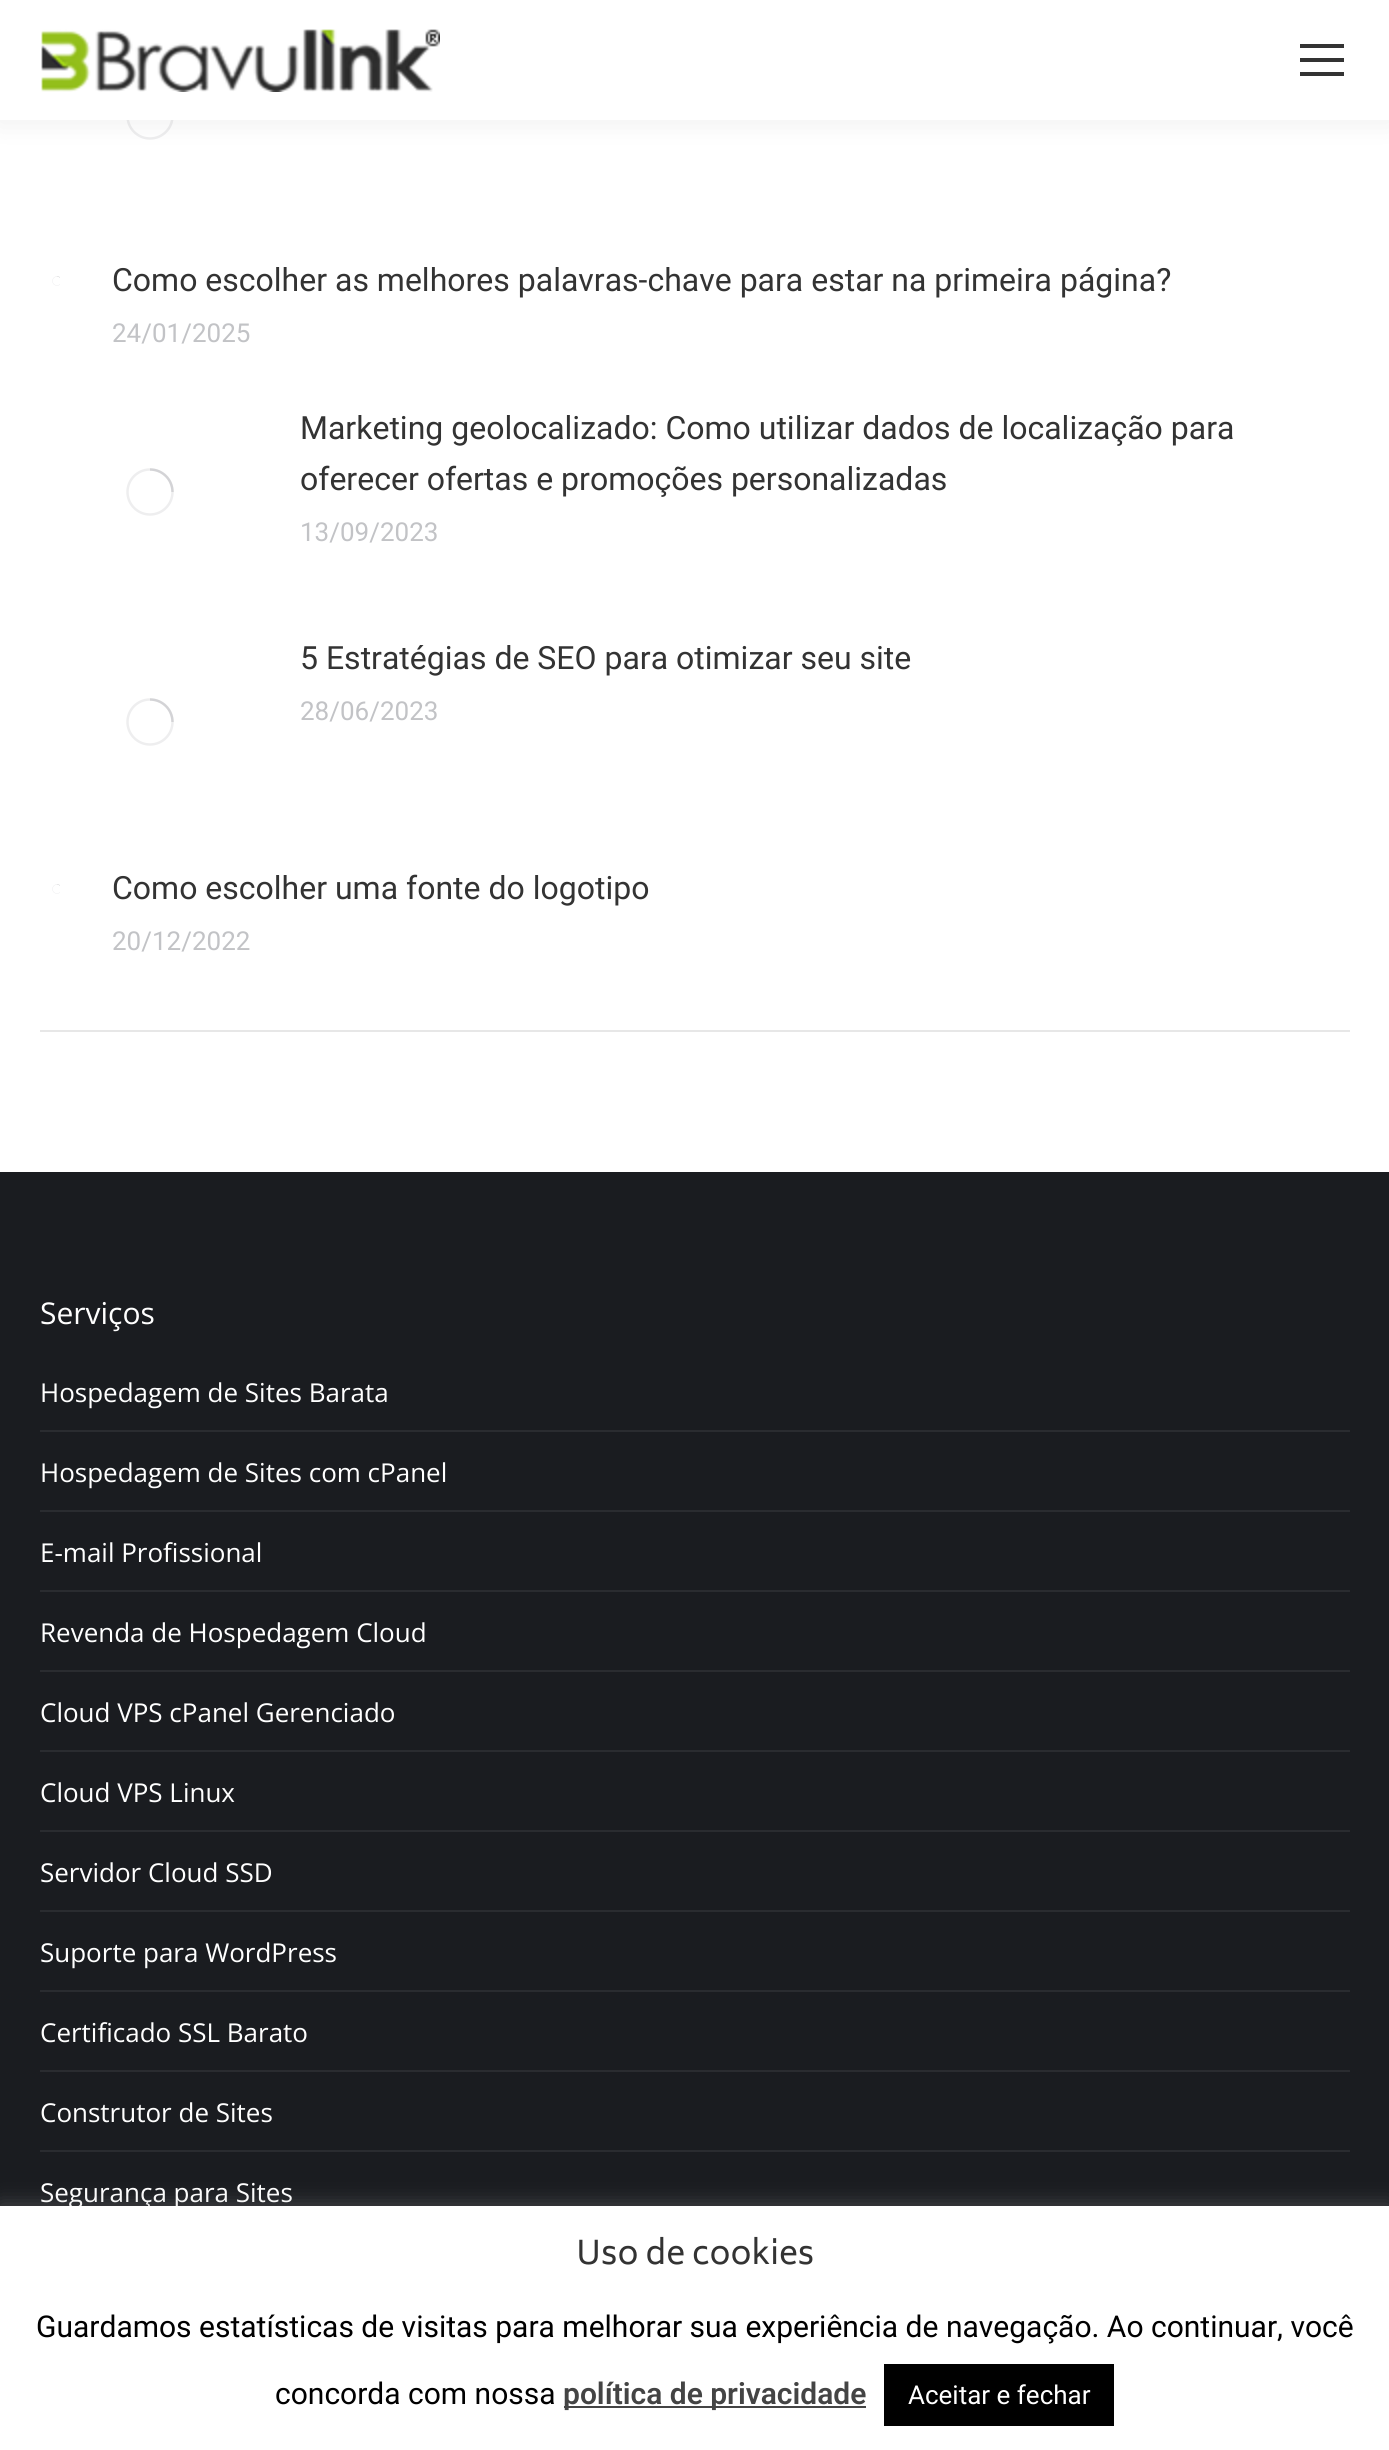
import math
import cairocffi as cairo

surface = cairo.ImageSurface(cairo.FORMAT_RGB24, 1389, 2450)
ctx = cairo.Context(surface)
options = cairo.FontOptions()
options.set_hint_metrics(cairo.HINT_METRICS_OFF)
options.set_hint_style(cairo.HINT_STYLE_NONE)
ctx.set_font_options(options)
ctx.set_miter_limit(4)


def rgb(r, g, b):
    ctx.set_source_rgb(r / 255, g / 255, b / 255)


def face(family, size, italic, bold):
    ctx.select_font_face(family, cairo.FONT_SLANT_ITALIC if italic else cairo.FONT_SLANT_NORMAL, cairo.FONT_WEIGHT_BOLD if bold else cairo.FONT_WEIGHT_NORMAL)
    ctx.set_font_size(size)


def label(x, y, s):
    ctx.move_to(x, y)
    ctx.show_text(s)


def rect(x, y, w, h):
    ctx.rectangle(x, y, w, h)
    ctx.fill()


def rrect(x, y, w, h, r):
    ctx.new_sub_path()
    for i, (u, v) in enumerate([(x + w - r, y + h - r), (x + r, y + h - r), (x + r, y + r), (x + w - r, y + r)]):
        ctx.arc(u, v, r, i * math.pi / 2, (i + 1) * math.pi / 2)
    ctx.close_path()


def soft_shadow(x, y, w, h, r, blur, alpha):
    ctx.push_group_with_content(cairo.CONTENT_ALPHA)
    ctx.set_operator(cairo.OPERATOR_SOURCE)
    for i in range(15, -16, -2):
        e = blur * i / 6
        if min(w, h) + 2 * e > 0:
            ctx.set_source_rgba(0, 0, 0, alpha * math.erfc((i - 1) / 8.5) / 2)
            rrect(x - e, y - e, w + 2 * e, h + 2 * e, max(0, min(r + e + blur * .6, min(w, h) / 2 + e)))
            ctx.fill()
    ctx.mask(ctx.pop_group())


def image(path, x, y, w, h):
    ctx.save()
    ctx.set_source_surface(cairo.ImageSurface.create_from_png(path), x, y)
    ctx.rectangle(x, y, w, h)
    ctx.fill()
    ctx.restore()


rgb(255, 255, 255)
ctx.paint()
ctx.arc(150, 116, 22.5, 0, 2 * math.pi)
rgb(238, 238, 239)
ctx.set_line_width(2.5)
ctx.stroke()
rgb(0, 0, 0)
soft_shadow(-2, -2, 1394, 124, 0, 15, 0.07)
rgb(255, 255, 255)
rect(0, 0, 1389, 120)
image('image0.png', 41, 29, 399, 63)
rgb(51, 51, 51)
rect(1300, 44, 44, 4)
rect(1300, 58, 44, 4)
rect(1300, 72, 44, 4)
rgb(231, 231, 231)
rect(40, 1030, 1310, 2)
image('image1.png', 52, 276, 8, 10)
face('Roboto', 32, 0, 0)
rgb(51, 51, 51)
label(112, 291, 'Como escolher as melhores palavras-chave para estar na primeira página?')
face('Roboto', 26, 0, 0)
rgb(194, 195, 198)
label(112, 342, '24/01/2025')
ctx.new_path()
ctx.arc(150, 492, 22.5, 0, 2 * math.pi)
rgb(238, 238, 239)
ctx.stroke()
ctx.new_path()
ctx.move_to(172.5, 492)
ctx.curve_to(172.5, 479.5, 162.5, 469.5, 150, 469.5)
ctx.set_source_rgba(0.522, 0.525, 0.549, 0.25)
ctx.stroke()
face('Roboto', 32, 0, 0)
rgb(51, 51, 51)
label(300, 439, 'Marketing geolocalizado: Como utilizar dados de localização para')
label(300, 490, 'oferecer ofertas e promoções personalizadas')
face('Roboto', 26, 0, 0)
rgb(194, 195, 198)
label(300, 541, '13/09/2023')
ctx.new_path()
ctx.arc(150, 722, 22.5, 0, 2 * math.pi)
rgb(238, 238, 239)
ctx.stroke()
ctx.new_path()
ctx.move_to(172.5, 722)
ctx.curve_to(172.5, 709.5, 162.5, 699.5, 150, 699.5)
ctx.set_source_rgba(0.522, 0.525, 0.549, 0.25)
ctx.stroke()
face('Roboto', 32, 0, 0)
rgb(51, 51, 51)
label(300, 669, '5 Estratégias de SEO para otimizar seu site')
face('Roboto', 26, 0, 0)
rgb(194, 195, 198)
label(300, 720, '28/06/2023')
image('image1.png', 52, 884, 8, 10)
face('Roboto', 32, 0, 0)
rgb(51, 51, 51)
label(112, 899, 'Como escolher uma fonte do logotipo')
face('Roboto', 26, 0, 0)
rgb(194, 195, 198)
label(112, 950, '20/12/2022')
rgb(26, 28, 32)
rect(0, 1172, 1389, 1034)
face('Open Sans', 30, 0, 0)
rgb(255, 255, 255)
label(40, 1324, 'Serviços')
face('Open Sans', 26, 0, 0)
label(40, 1402, 'Hospedagem de Sites Barata')
rgb(42, 44, 48)
rect(40, 1430, 1310, 2)
rgb(255, 255, 255)
label(40, 1482, 'Hospedagem de Sites com cPanel')
rgb(42, 44, 48)
rect(40, 1510, 1310, 2)
rgb(255, 255, 255)
label(40, 1562, 'E-mail Profissional')
rgb(42, 44, 48)
rect(40, 1590, 1310, 2)
rgb(255, 255, 255)
label(40, 1642, 'Revenda de Hospedagem Cloud')
rgb(42, 44, 48)
rect(40, 1670, 1310, 2)
rgb(255, 255, 255)
label(40, 1722, 'Cloud VPS cPanel Gerenciado')
rgb(42, 44, 48)
rect(40, 1750, 1310, 2)
rgb(255, 255, 255)
label(40, 1802, 'Cloud VPS Linux')
rgb(42, 44, 48)
rect(40, 1830, 1310, 2)
rgb(255, 255, 255)
label(40, 1882, 'Servidor Cloud SSD')
rgb(42, 44, 48)
rect(40, 1910, 1310, 2)
rgb(255, 255, 255)
label(40, 1962, 'Suporte para WordPress')
rgb(42, 44, 48)
rect(40, 1990, 1310, 2)
rgb(255, 255, 255)
label(40, 2042, 'Certificado SSL Barato')
rgb(42, 44, 48)
rect(40, 2070, 1310, 2)
rgb(255, 255, 255)
label(40, 2122, 'Construtor de Sites')
rgb(42, 44, 48)
rect(40, 2150, 1310, 2)
rgb(255, 255, 255)
label(40, 2202, 'Segurança para Sites')
rgb(172, 171, 171)
soft_shadow(0, 2204, 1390, 244, 0, 10, 0.3)
rgb(255, 255, 255)
rect(0, 2206, 1389, 244)
face('Biryani', 32, 0, 0)
rgb(51, 51, 51)
label(576, 2264, 'Uso de cookies')
face('Roboto', 30, 0, 0)
rgb(0, 0, 0)
label(36, 2337, 'Guardamos estatísticas de visitas para melhorar sua experiência de navegação. Ao continuar, você')
label(275, 2404, 'concorda com nossa')
rgb(68, 68, 68)
rect(564, 2406, 302, 2)
face('Roboto SemiBold', 30, 0, 0)
label(563, 2404, 'política de privacidade')
rgb(0, 0, 0)
rect(884, 2364, 230, 62)
face('Roboto', 26, 0, 0)
rgb(255, 255, 255)
label(908, 2404, 'Aceitar e fechar')
surface.write_to_png('render.png')
